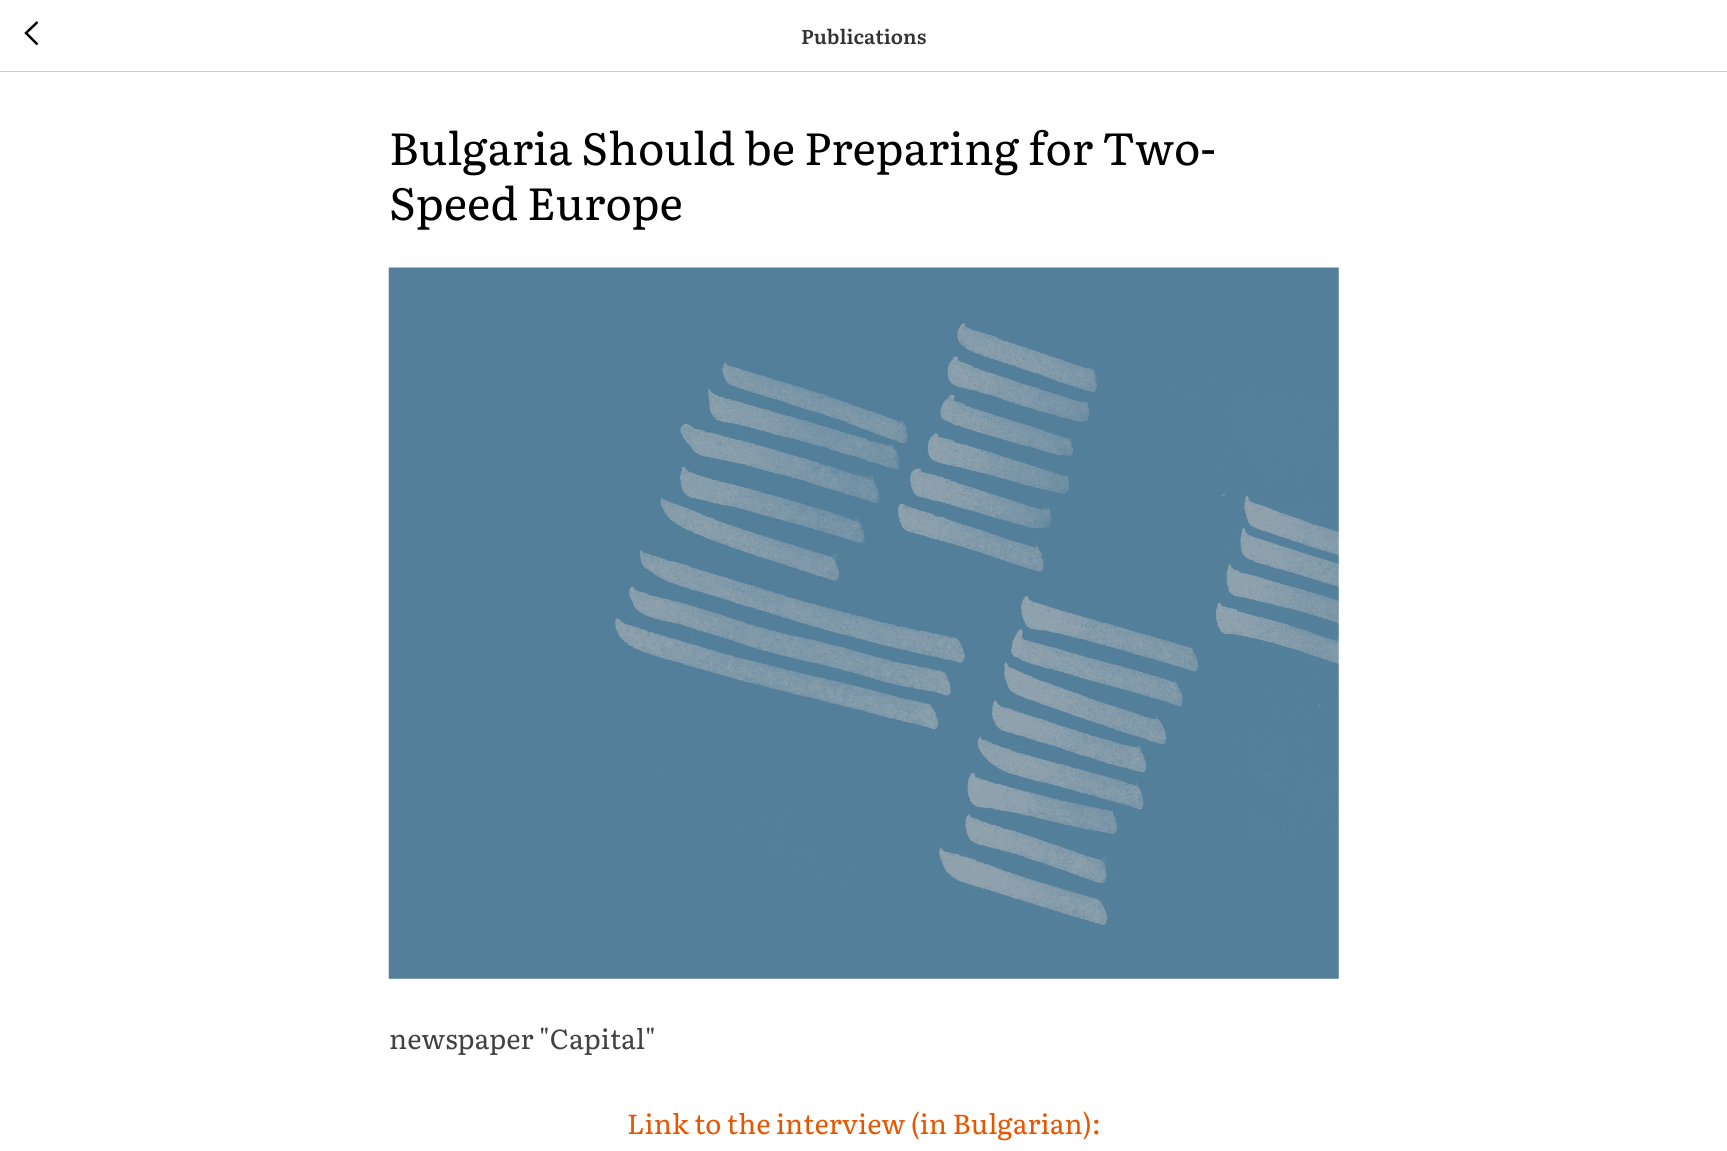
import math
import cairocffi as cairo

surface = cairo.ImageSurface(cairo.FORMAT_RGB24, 1727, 1151)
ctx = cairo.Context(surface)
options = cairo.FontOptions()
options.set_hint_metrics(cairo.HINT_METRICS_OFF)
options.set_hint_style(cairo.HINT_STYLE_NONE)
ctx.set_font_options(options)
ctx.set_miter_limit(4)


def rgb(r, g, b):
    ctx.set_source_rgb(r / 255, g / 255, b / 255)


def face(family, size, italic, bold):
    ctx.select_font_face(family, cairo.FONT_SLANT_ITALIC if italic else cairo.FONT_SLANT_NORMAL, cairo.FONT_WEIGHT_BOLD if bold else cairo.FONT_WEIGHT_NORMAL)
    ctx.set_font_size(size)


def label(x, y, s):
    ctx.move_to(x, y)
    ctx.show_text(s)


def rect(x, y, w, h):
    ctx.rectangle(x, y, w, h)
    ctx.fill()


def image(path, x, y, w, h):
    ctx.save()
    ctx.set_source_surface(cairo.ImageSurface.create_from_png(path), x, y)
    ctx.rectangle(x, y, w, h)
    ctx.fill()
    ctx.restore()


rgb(255, 255, 255)
ctx.paint()
rgb(204, 204, 204)
rect(0, 71, 1727, 1)
ctx.new_path()
ctx.move_to(37.5, 44.5)
ctx.line_to(26, 33)
ctx.line_to(37.5, 22)
rgb(0, 0, 0)
ctx.set_line_width(2.5)
ctx.stroke()
face('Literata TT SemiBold', 20, 0, 0)
rgb(51, 51, 51)
label(801, 44, 'Publications')
face('Literata TT', 45, 0, 0)
rgb(0, 0, 0)
label(389, 165, 'Bulgaria Should be Preparing for Two-')
label(389, 220, 'Speed Europe')
image('image0.png', 388, 267, 951, 712)
face('Literata TT', 27.5, 0, 0)
rgb(66, 66, 66)
label(389, 1049, 'newspaper "Capital"')
rgb(232, 85, 0)
label(627, 1134, 'Link to the interview (in Bulgarian):')
surface.write_to_png('render.png')
